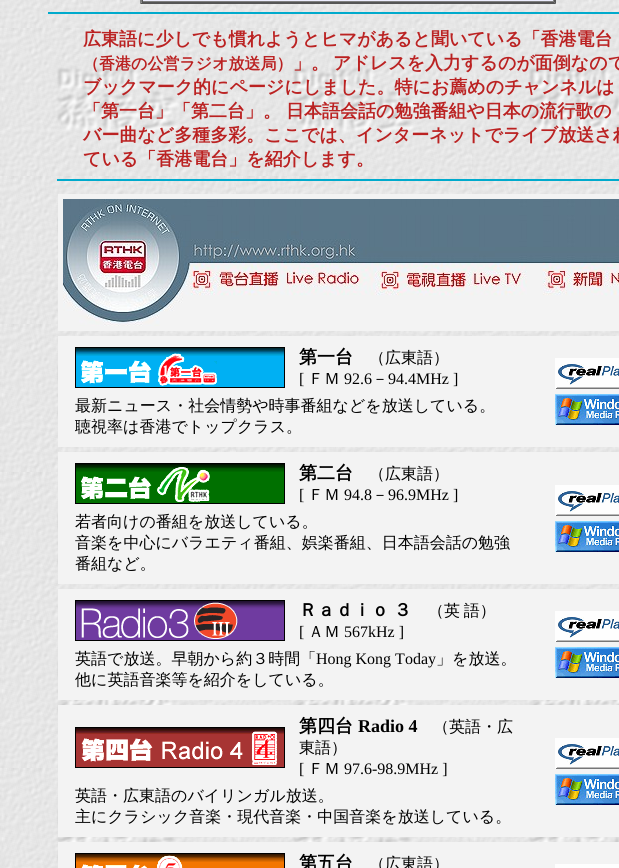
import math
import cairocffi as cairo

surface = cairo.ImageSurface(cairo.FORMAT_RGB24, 619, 868)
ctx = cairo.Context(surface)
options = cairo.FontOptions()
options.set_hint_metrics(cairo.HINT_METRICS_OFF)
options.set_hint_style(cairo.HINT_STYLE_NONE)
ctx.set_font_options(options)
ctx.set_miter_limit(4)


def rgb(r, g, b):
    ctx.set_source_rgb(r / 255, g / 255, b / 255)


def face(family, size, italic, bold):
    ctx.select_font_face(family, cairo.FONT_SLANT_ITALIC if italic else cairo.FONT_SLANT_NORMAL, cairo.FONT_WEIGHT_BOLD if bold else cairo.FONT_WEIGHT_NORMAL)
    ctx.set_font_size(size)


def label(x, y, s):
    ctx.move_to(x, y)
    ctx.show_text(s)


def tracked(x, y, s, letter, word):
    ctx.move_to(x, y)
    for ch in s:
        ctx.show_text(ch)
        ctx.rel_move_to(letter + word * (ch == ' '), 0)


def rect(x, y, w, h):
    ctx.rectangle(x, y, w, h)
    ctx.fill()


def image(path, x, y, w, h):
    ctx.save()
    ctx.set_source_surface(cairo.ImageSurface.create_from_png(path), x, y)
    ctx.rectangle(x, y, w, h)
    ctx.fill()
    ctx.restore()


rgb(255, 255, 255)
ctx.paint()
image('image0.png', 0, 0, 619, 868)
rgb(85, 85, 85)
ctx.new_path()
ctx.move_to(556, -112)
ctx.line_to(556, 4)
ctx.line_to(554, 2)
ctx.line_to(554, -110)
ctx.close_path()
ctx.fill()
ctx.new_path()
ctx.move_to(556, 4)
ctx.line_to(140, 4)
ctx.line_to(142, 2)
ctx.line_to(554, 2)
ctx.close_path()
ctx.fill()
rgb(128, 128, 128)
ctx.new_path()
ctx.move_to(140, 4)
ctx.line_to(140, -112)
ctx.line_to(142, -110)
ctx.line_to(142, 2)
ctx.close_path()
ctx.fill()
rgb(238, 238, 255)
rect(142, 0, 412, 1)
rgb(128, 128, 128)
rect(553, 0, 1, 2)
rect(142, 1, 412, 1)
rgb(85, 85, 85)
rect(142, 0, 1, 2)
rgb(0, 170, 204)
rect(48, 12, 571, 2)
face('WenQuanYi Zen Hei', 18, 0, 1)
rgb(187, 34, 34)
label(83, 45, '広東語に少しでも慣れようとヒマがあると聞いている「香港電台')
face('WenQuanYi Zen Hei', 16, 0, 1)
label(83, 69, '（香港の公営ラジオ放送局）')
face('WenQuanYi Zen Hei', 18, 0, 1)
label(293, 69, '」。')
label(333, 69, 'アドレスを入力するのが面倒なので')
label(83, 93, 'ブックマーク的にページにしました。特にお薦めのチャンネルは')
label(83, 117, '「第一台」「第二台」。')
label(286, 117, '日本語会話の勉強番組や日本の流行歌の')
label(83, 141, 'バー曲など多種多彩。ここでは、インターネットでライブ放送され')
label(83, 165, 'ている「香港電台」を紹介します。')
rgb(0, 170, 204)
rect(57, 179, 562, 2)
rgb(243, 243, 243)
rect(58, 194, 561, 137)
image('image1.png', 63, 199, 556, 127)
rect(58, 336, 561, 111)
ctx.rectangle(75.5, 347.5, 209, 40)
rgb(0, 0, 0)
ctx.set_line_width(1)
ctx.stroke()
image('image2.png', 76, 348, 208, 39)
label(299, 363, '第一台')
face('WenQuanYi Zen Hei Medium', 16, 0, 0)
label(369, 363, '（広東語）')
face('Liberation Serif', 16, 0, 0)
label(299, 384, '[')
face('WenQuanYi Zen Hei Medium', 16, 0, 0)
label(308, 384, 'ＦＭ')
face('Liberation Serif', 16, 0, 0)
label(344, 384, '92.6')
face('WenQuanYi Zen Hei Medium', 16, 0, 0)
label(372, 384, '－')
face('Liberation Serif', 16, 0, 0)
label(388, 384, '94.4MHz ]')
face('WenQuanYi Zen Hei Medium', 16, 0, 0)
label(75, 411, '最新ニュース・社会情勢や時事番組などを放送している。')
label(75, 432, '聴視率は香港でトップクラス。')
image('image3.png', 555, 358, 64, 31)
image('image4.png', 555, 394, 64, 31)
rgb(243, 243, 243)
rect(58, 452, 561, 132)
ctx.rectangle(75.5, 463.5, 209, 40)
rgb(0, 0, 0)
ctx.stroke()
image('image5.png', 76, 464, 208, 39)
face('WenQuanYi Zen Hei', 18, 0, 1)
label(299, 479, '第二台')
face('WenQuanYi Zen Hei Medium', 16, 0, 0)
label(369, 479, '（広東語）')
face('Liberation Serif', 16, 0, 0)
label(299, 500, '[')
face('WenQuanYi Zen Hei Medium', 16, 0, 0)
label(308, 500, 'ＦＭ')
face('Liberation Serif', 16, 0, 0)
label(344, 500, '94.8')
face('WenQuanYi Zen Hei Medium', 16, 0, 0)
label(372, 500, '－')
face('Liberation Serif', 16, 0, 0)
label(388, 500, '96.9MHz ]')
face('WenQuanYi Zen Hei Medium', 16, 0, 0)
label(75, 527, '若者向けの番組を放送している。')
label(75, 548, '音楽を中心にバラエティ番組、娯楽番組、日本語会話の勉強')
label(75, 569, '番組など。')
image('image3.png', 555, 485, 64, 31)
image('image4.png', 555, 521, 64, 31)
rgb(243, 243, 243)
rect(58, 589, 561, 111)
ctx.rectangle(75.5, 600.5, 209, 40)
rgb(0, 0, 0)
ctx.stroke()
image('image6.png', 76, 601, 208, 39)
face('WenQuanYi Zen Hei', 18, 0, 1)
tracked(299, 616, 'Ｒａｄｉｏ ３', 0, -1)
face('WenQuanYi Zen Hei Medium', 16, 0, 0)
tracked(428, 616, '（英 語）', 0, -1)
face('Liberation Serif', 16, 0, 0)
label(299, 637, '[')
face('WenQuanYi Zen Hei Medium', 16, 0, 0)
label(308, 637, 'ＡＭ')
face('Liberation Serif', 16, 0, 0)
label(344, 637, '567kHz ]')
face('WenQuanYi Zen Hei Medium', 16, 0, 0)
label(75, 664, '英語で放送。早朝から約３時間「')
face('Liberation Serif', 16, 0, 0)
label(316, 664, 'Hong Kong Today')
face('WenQuanYi Zen Hei Medium', 16, 0, 0)
label(436, 664, '」を放送。')
label(75, 685, '他に英語音楽等を紹介をしている。')
image('image3.png', 555, 611, 64, 31)
image('image4.png', 555, 647, 64, 31)
rgb(243, 243, 243)
rect(58, 705, 561, 132)
ctx.rectangle(75.5, 727.5, 209, 40)
rgb(0, 0, 0)
ctx.stroke()
image('image7.png', 76, 728, 208, 39)
face('WenQuanYi Zen Hei', 18, 0, 1)
label(299, 732, '第四台')
face('Liberation Serif', 18, 0, 1)
label(358, 732, 'Radio 4')
face('WenQuanYi Zen Hei Medium', 16, 0, 0)
label(433, 732, '（英語・広')
label(299, 753, '東語）')
face('Liberation Serif', 16, 0, 0)
label(299, 774, '[')
face('WenQuanYi Zen Hei Medium', 16, 0, 0)
label(308, 774, 'ＦＭ')
face('Liberation Serif', 16, 0, 0)
label(344, 774, '97.6-98.9MHz ]')
face('WenQuanYi Zen Hei Medium', 16, 0, 0)
label(75, 801, '英語・広東語のバイリンガル放送。')
label(75, 822, '主にクラシック音楽・現代音楽・中国音楽を放送している。')
image('image3.png', 555, 738, 64, 31)
image('image4.png', 555, 774, 64, 31)
rgb(243, 243, 243)
rect(58, 842, 561, 26)
ctx.rectangle(75.5, 853.5, 209, 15)
rgb(0, 0, 0)
ctx.stroke()
image('image8.png', 76, 854, 208, 14)
face('WenQuanYi Zen Hei', 18, 0, 1)
label(299, 869, '第五台')
face('WenQuanYi Zen Hei Medium', 16, 0, 0)
label(369, 869, '（広東語）')
rgb(254, 254, 254)
rect(555, 864, 64, 4)
surface.write_to_png('render.png')
